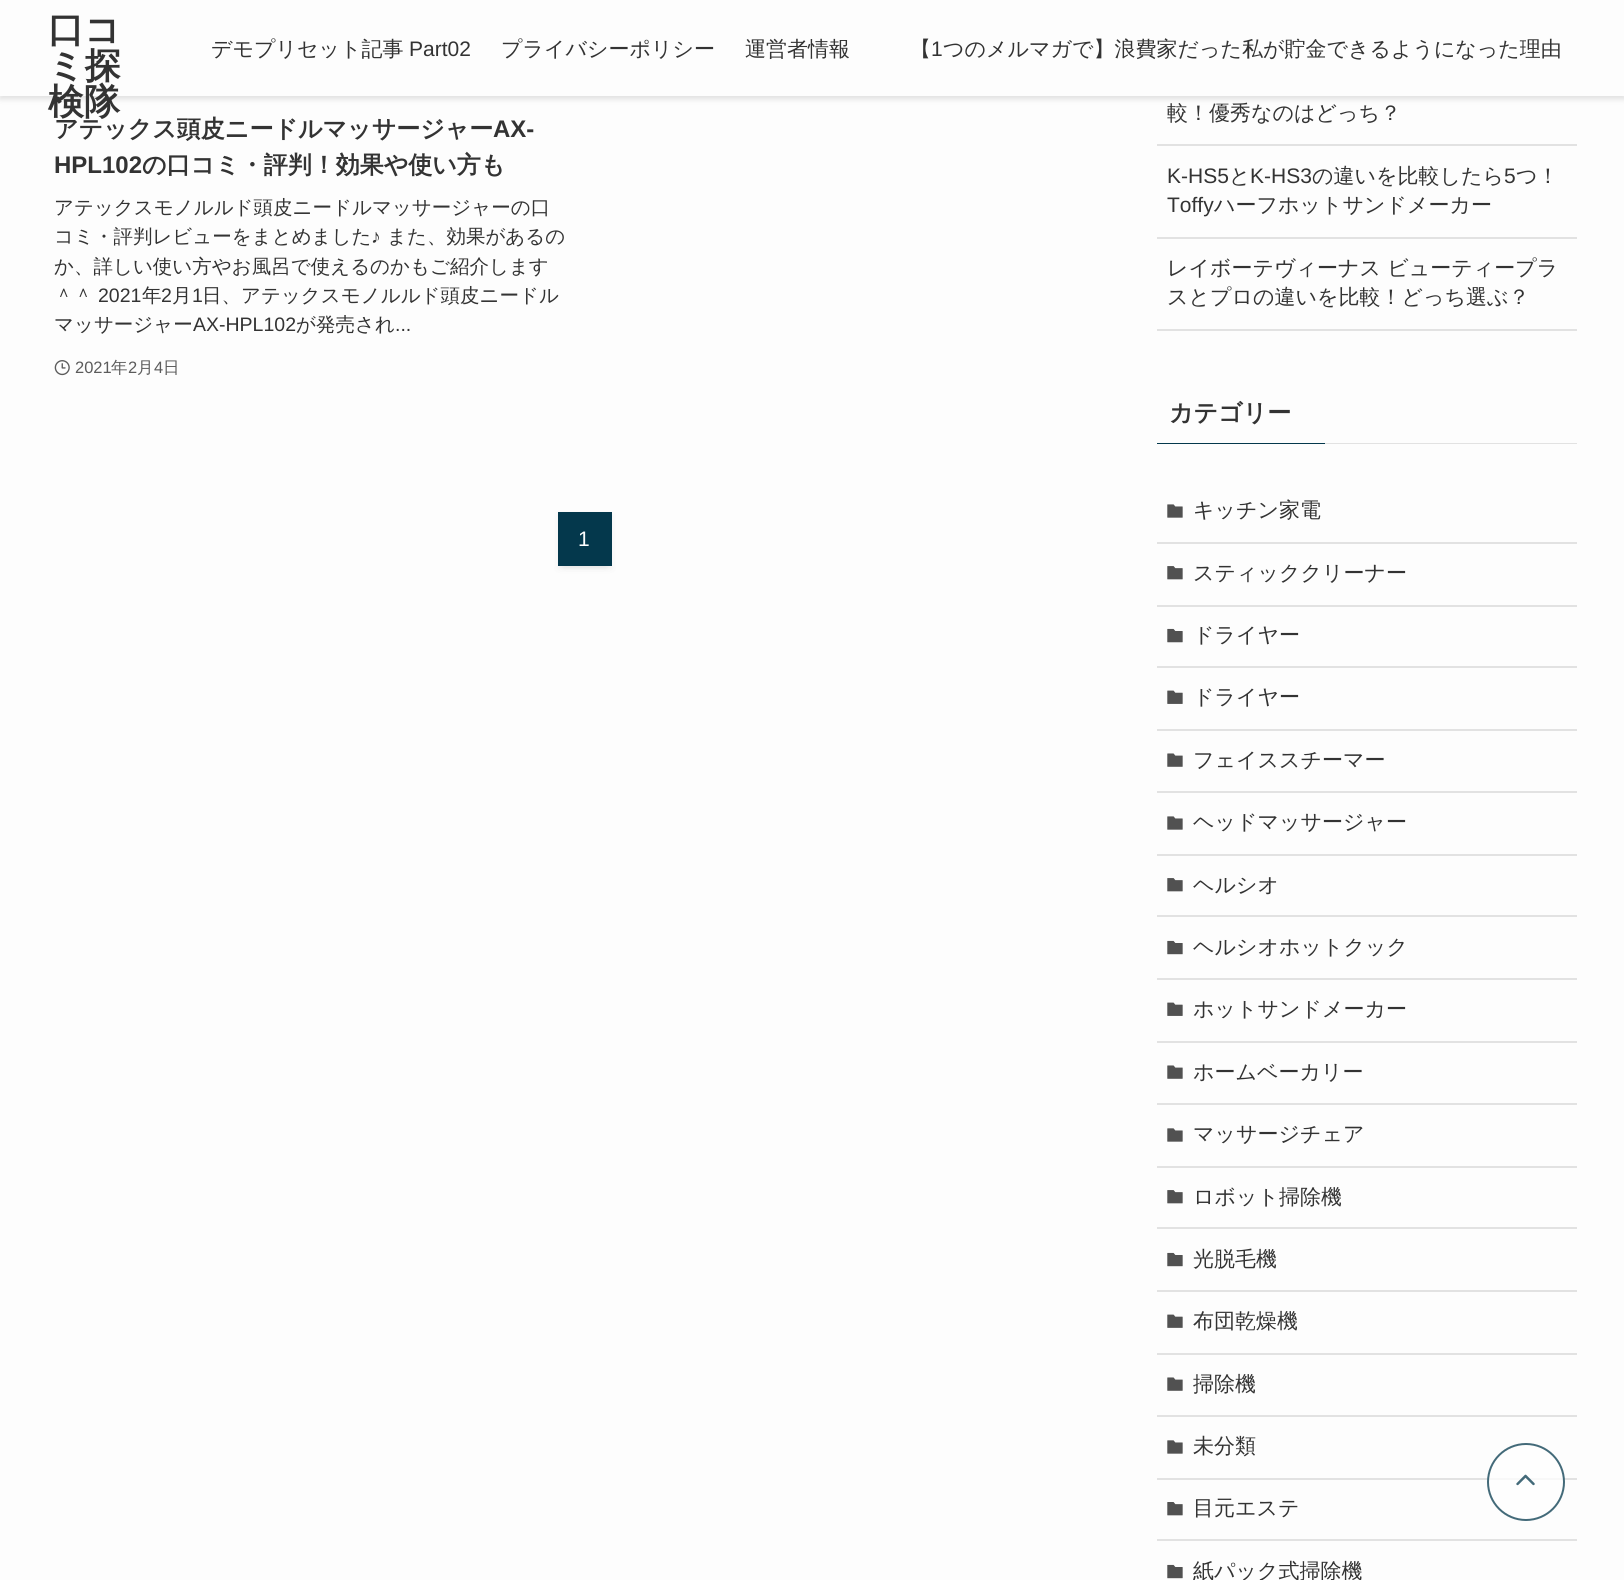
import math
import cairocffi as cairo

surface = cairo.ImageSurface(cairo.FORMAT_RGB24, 1624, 1580)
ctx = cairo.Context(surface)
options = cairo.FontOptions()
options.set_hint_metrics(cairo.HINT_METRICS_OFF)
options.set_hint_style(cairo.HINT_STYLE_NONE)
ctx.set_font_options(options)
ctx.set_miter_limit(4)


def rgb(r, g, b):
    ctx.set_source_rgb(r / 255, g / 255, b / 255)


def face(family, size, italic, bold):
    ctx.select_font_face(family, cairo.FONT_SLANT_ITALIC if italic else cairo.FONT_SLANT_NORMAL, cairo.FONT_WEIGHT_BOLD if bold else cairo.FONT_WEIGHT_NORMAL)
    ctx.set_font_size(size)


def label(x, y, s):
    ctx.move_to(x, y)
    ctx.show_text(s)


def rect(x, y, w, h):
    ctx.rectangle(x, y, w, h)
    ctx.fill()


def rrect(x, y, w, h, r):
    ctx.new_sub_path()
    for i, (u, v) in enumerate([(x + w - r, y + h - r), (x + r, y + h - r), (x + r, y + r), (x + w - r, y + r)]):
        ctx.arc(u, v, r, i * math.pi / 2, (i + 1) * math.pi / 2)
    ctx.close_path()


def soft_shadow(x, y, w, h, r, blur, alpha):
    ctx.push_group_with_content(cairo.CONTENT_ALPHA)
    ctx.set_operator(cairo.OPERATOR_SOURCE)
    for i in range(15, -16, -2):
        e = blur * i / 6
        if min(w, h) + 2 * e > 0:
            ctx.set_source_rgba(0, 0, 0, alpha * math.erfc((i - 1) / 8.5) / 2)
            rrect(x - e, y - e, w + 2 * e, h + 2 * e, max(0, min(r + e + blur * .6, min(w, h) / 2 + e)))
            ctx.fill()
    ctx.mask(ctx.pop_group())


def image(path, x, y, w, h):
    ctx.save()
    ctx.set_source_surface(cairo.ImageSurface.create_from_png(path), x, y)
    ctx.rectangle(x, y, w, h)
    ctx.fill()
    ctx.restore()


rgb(253, 253, 253)
ctx.paint()
rgb(0, 0, 0)
soft_shadow(0, 3, 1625, 96, 0, 3, 0.12)
rgb(253, 253, 253)
rect(0, 0, 1624, 96)
face('WenQuanYi Zen Hei', 36, 0, 1)
rgb(51, 51, 51)
label(48, 42, '口コ')
label(48, 78, 'ミ探')
label(48, 114, '検隊')
face('WenQuanYi Zen Hei Medium', 21, 0, 0)
label(211, 56, 'デモプリセット記事')
face('Liberation Sans', 21, 0, 0)
label(409, 56, 'Part02')
face('WenQuanYi Zen Hei Medium', 21, 0, 0)
label(501, 56, 'プライバシーポリシー')
label(745, 56, '運営者情報')
label(910, 56, '【')
face('Liberation Sans', 21, 0, 0)
label(931, 56, '1')
face('WenQuanYi Zen Hei Medium', 21, 0, 0)
label(943, 56, 'つのメルマガで】浪費家だった私が貯金できるようになった理由')
face('WenQuanYi Zen Hei', 24, 0, 1)
label(54, 137, 'アテックス頭皮ニードルマッサージャー')
face('Liberation Sans', 24, 0, 1)
label(493, 137, 'AX-')
label(54, 173, 'HPL102')
face('WenQuanYi Zen Hei', 24, 0, 1)
label(142, 173, 'の口コミ・評判！効果や使い方も')
face('WenQuanYi Zen Hei Medium', 19.5, 0, 0)
label(54, 214, 'アテックスモノルルド頭皮ニードルマッサージャーの口')
label(54, 243, 'コミ・評判レビューをまとめました')
face('Liberation Sans', 19.5, 0, 0)
label(371, 243, '♪')
face('WenQuanYi Zen Hei Medium', 19.5, 0, 0)
label(387, 243, 'また、効果があるの')
label(54, 273, 'か、詳しい使い方やお風呂で使えるのかもご紹介します')
label(54, 302, '＾＾')
face('Liberation Sans', 19.5, 0, 0)
label(98, 302, '2021')
face('WenQuanYi Zen Hei Medium', 19.5, 0, 0)
label(142, 302, '年')
face('Liberation Sans', 19.5, 0, 0)
label(161, 302, '2')
face('WenQuanYi Zen Hei Medium', 19.5, 0, 0)
label(172, 302, '月')
face('Liberation Sans', 19.5, 0, 0)
label(192, 302, '1')
face('WenQuanYi Zen Hei Medium', 19.5, 0, 0)
label(202, 302, '日、アテックスモノルルド頭皮ニードル')
label(54, 331, 'マッサージャー')
face('Liberation Sans', 19.5, 0, 0)
label(193, 331, 'AX-HPL102')
face('WenQuanYi Zen Hei Medium', 19.5, 0, 0)
label(296, 331, 'が発売され')
face('Liberation Sans', 19.5, 0, 0)
label(395, 331, '...')
image('image0.png', 54, 360, 16, 16)
face('Liberation Sans', 16.5, 0, 0)
rgb(91, 91, 91)
label(75, 373, '2021')
face('WenQuanYi Zen Hei Medium', 16.5, 0, 0)
label(111, 373, '年')
face('Liberation Sans', 16.5, 0, 0)
label(128, 373, '2')
face('WenQuanYi Zen Hei Medium', 16.5, 0, 0)
label(137, 373, '月')
face('Liberation Sans', 16.5, 0, 0)
label(154, 373, '4')
face('WenQuanYi Zen Hei Medium', 16.5, 0, 0)
label(163, 373, '日')
rgb(0, 0, 0)
soft_shadow(564, 524, 42, 42, 0, 3, 0.1)
soft_shadow(558, 515, 54, 54, 0, 3, 0.05)
rgb(4, 56, 76)
rect(558, 512, 54, 54)
face('Liberation Sans', 21, 0, 0)
rgb(255, 255, 255)
label(578, 546, '1')
rgb(226, 226, 226)
rect(1157, 144, 420, 2)
face('WenQuanYi Zen Hei Medium', 21, 0, 0)
rgb(51, 51, 51)
label(1167, 120, '較！優秀なのはどっち？')
rgb(226, 226, 226)
rect(1157, 237, 420, 2)
face('Liberation Sans', 21, 0, 0)
rgb(51, 51, 51)
label(1167, 183, 'K-HS5')
face('WenQuanYi Zen Hei Medium', 21, 0, 0)
label(1229, 183, 'と')
face('Liberation Sans', 21, 0, 0)
label(1250, 183, 'K-HS3')
face('WenQuanYi Zen Hei Medium', 21, 0, 0)
label(1312, 183, 'の違いを比較したら')
face('Liberation Sans', 21, 0, 0)
label(1504, 183, '5')
face('WenQuanYi Zen Hei Medium', 21, 0, 0)
label(1516, 183, 'つ！')
face('Liberation Sans', 21, 0, 0)
label(1167, 212, 'Toffy')
face('WenQuanYi Zen Hei Medium', 21, 0, 0)
label(1214, 212, 'ハーフホットサンドメーカー')
rgb(226, 226, 226)
rect(1157, 329, 420, 2)
rgb(51, 51, 51)
label(1167, 275, 'レイボーテヴィーナス ビューティープラ')
label(1167, 304, 'スとプロの違いを比較！どっち選ぶ？')
face('WenQuanYi Zen Hei', 24, 0, 1)
label(1169, 421, 'カテゴリー')
rgb(4, 56, 76)
rect(1157, 443, 168, 1)
rgb(226, 226, 226)
rect(1325, 443, 252, 1)
rect(1157, 542, 420, 2)
image('image1.png', 1167, 504, 16, 14)
face('WenQuanYi Zen Hei Medium', 21, 0, 0)
rgb(51, 51, 51)
label(1193, 517, 'キッチン家電')
rgb(226, 226, 226)
rect(1157, 605, 420, 2)
image('image2.png', 1167, 566, 16, 14)
rgb(51, 51, 51)
label(1193, 580, 'スティッククリーナー')
rgb(226, 226, 226)
rect(1157, 666, 420, 2)
image('image3.png', 1167, 628, 16, 15)
rgb(51, 51, 51)
label(1193, 642, 'ドライヤー')
rgb(226, 226, 226)
rect(1157, 729, 420, 2)
image('image4.png', 1167, 690, 16, 14)
rgb(51, 51, 51)
label(1193, 704, 'ドライヤー')
rgb(226, 226, 226)
rect(1157, 791, 420, 2)
image('image5.png', 1167, 753, 16, 14)
rgb(51, 51, 51)
label(1193, 767, 'フェイススチーマー')
rgb(226, 226, 226)
rect(1157, 854, 420, 2)
image('image6.png', 1167, 816, 16, 14)
rgb(51, 51, 51)
label(1193, 829, 'ヘッドマッサージャー')
rgb(226, 226, 226)
rect(1157, 915, 420, 2)
image('image7.png', 1167, 878, 16, 14)
rgb(51, 51, 51)
label(1193, 892, 'ヘルシオ')
rgb(226, 226, 226)
rect(1157, 978, 420, 2)
image('image8.png', 1167, 940, 16, 15)
rgb(51, 51, 51)
label(1193, 954, 'ヘルシオホットクック')
rgb(226, 226, 226)
rect(1157, 1041, 420, 2)
image('image9.png', 1167, 1002, 16, 14)
rgb(51, 51, 51)
label(1193, 1016, 'ホットサンドメーカー')
rgb(226, 226, 226)
rect(1157, 1103, 420, 2)
image('image10.png', 1167, 1065, 16, 14)
rgb(51, 51, 51)
label(1193, 1079, 'ホームベーカリー')
rgb(226, 226, 226)
rect(1157, 1166, 420, 2)
image('image11.png', 1167, 1128, 16, 14)
rgb(51, 51, 51)
label(1193, 1141, 'マッサージチェア')
rgb(226, 226, 226)
rect(1157, 1227, 420, 2)
image('image12.png', 1167, 1190, 16, 14)
rgb(51, 51, 51)
label(1193, 1204, 'ロボット掃除機')
rgb(226, 226, 226)
rect(1157, 1290, 420, 2)
image('image13.png', 1167, 1252, 16, 15)
rgb(51, 51, 51)
label(1193, 1266, '光脱毛機')
rgb(226, 226, 226)
rect(1157, 1353, 420, 2)
image('image14.png', 1167, 1314, 16, 14)
rgb(51, 51, 51)
label(1193, 1328, '布団乾燥機')
rgb(226, 226, 226)
rect(1157, 1415, 420, 2)
image('image15.png', 1167, 1377, 16, 14)
rgb(51, 51, 51)
label(1193, 1391, '掃除機')
rgb(226, 226, 226)
rect(1157, 1478, 420, 2)
image('image16.png', 1167, 1440, 16, 14)
rgb(51, 51, 51)
label(1193, 1453, '未分類')
rgb(226, 226, 226)
rect(1157, 1539, 420, 2)
image('image17.png', 1167, 1502, 16, 14)
rgb(51, 51, 51)
label(1193, 1515, '目元エステ')
image('image18.png', 1167, 1564, 16, 15)
label(1193, 1578, '紙パック式掃除機')
ctx.set_source_rgba(1, 1, 1, 0.75)
ctx.new_path()
ctx.arc(1526, 1482, 39, 0, 2 * math.pi)
ctx.fill()
ctx.arc(1526, 1482, 38, 0, 2 * math.pi)
ctx.set_source_rgba(0.016, 0.22, 0.298, 0.75)
ctx.stroke()
image('image19.png', 1516, 1474, 19, 12)
surface.write_to_png('render.png')
